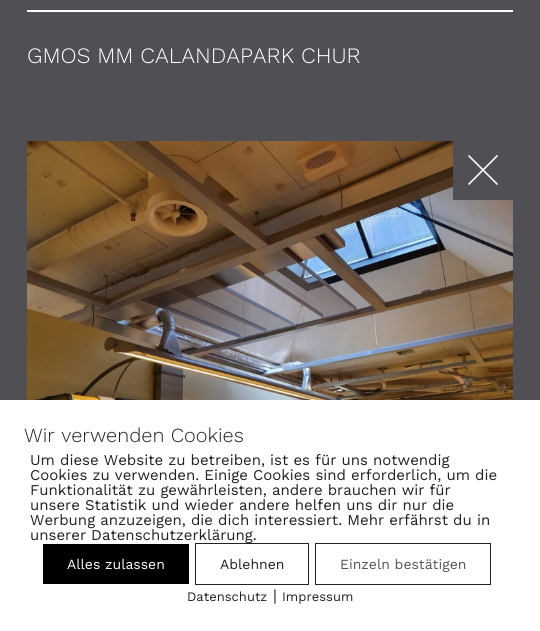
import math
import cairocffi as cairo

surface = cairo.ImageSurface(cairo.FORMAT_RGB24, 540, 631)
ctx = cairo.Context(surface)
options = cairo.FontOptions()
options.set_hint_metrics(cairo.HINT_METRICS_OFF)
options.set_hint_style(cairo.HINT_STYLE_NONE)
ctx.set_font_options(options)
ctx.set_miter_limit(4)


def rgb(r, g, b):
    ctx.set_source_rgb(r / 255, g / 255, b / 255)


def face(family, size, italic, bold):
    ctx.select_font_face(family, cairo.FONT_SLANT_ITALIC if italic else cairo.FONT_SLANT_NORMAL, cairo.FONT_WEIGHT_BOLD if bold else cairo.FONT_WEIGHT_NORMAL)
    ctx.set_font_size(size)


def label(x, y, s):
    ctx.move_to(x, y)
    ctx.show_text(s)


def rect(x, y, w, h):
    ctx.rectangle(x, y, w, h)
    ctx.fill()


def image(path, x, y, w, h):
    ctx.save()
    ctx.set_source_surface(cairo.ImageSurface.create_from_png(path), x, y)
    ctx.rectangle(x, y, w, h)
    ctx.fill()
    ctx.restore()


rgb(79, 79, 84)
ctx.paint()
rgb(255, 255, 255)
rect(27, 10, 486, 2)
face('Work Sans Light', 22, 0, 0)
label(27, 63, 'GMOS MM CALANDAPARK CHUR')
image('image0.png', 27, 141, 486, 259)
rgb(79, 79, 84)
rect(453, 141, 60, 59)
ctx.new_path()
ctx.move_to(468.5, 155.5)
ctx.line_to(497.5, 184.5)
ctx.move_to(497.5, 155.5)
ctx.line_to(468.5, 184.5)
rgb(255, 255, 255)
ctx.set_line_width(1.6)
ctx.stroke()
rect(0, 400, 540, 231)
face('Work Sans Light', 20, 0, 0)
rgb(33, 33, 33)
label(24, 442, 'Wir verwenden Cookies')
face('Work Sans', 15, 0, 0)
label(30, 465, 'Um diese Website zu betreiben, ist es für uns notwendig')
label(30, 480, 'Cookies zu verwenden. Einige Cookies sind erforderlich, um die')
label(30, 495, 'Funktionalität zu gewährleisten, andere brauchen wir für')
label(30, 510, 'unsere Statistik und wieder andere helfen uns dir nur die')
label(30, 525, 'Werbung anzuzeigen, die dich interessiert. Mehr erfährst du in')
label(30, 540, 'unserer Datenschutzerklärung.')
rgb(0, 0, 0)
rect(43, 544, 146, 40)
face('Work Sans', 14, 0, 0)
rgb(255, 255, 255)
label(67, 569, 'Alles zulassen')
ctx.rectangle(195.5, 543.5, 113, 41)
rgb(33, 33, 33)
ctx.set_line_width(1)
ctx.stroke()
label(220, 569, 'Ablehnen')
ctx.rectangle(315.5, 543.5, 175, 41)
ctx.stroke()
rgb(85, 85, 85)
label(340, 569, 'Einzeln bestätigen')
face('Work Sans', 13, 0, 0)
rgb(33, 33, 33)
label(187, 601, 'Datenschutz')
face('Work Sans', 16, 0, 0)
label(273, 601, '|')
face('Work Sans', 13, 0, 0)
label(282, 601, 'Impressum')
surface.write_to_png('render.png')
